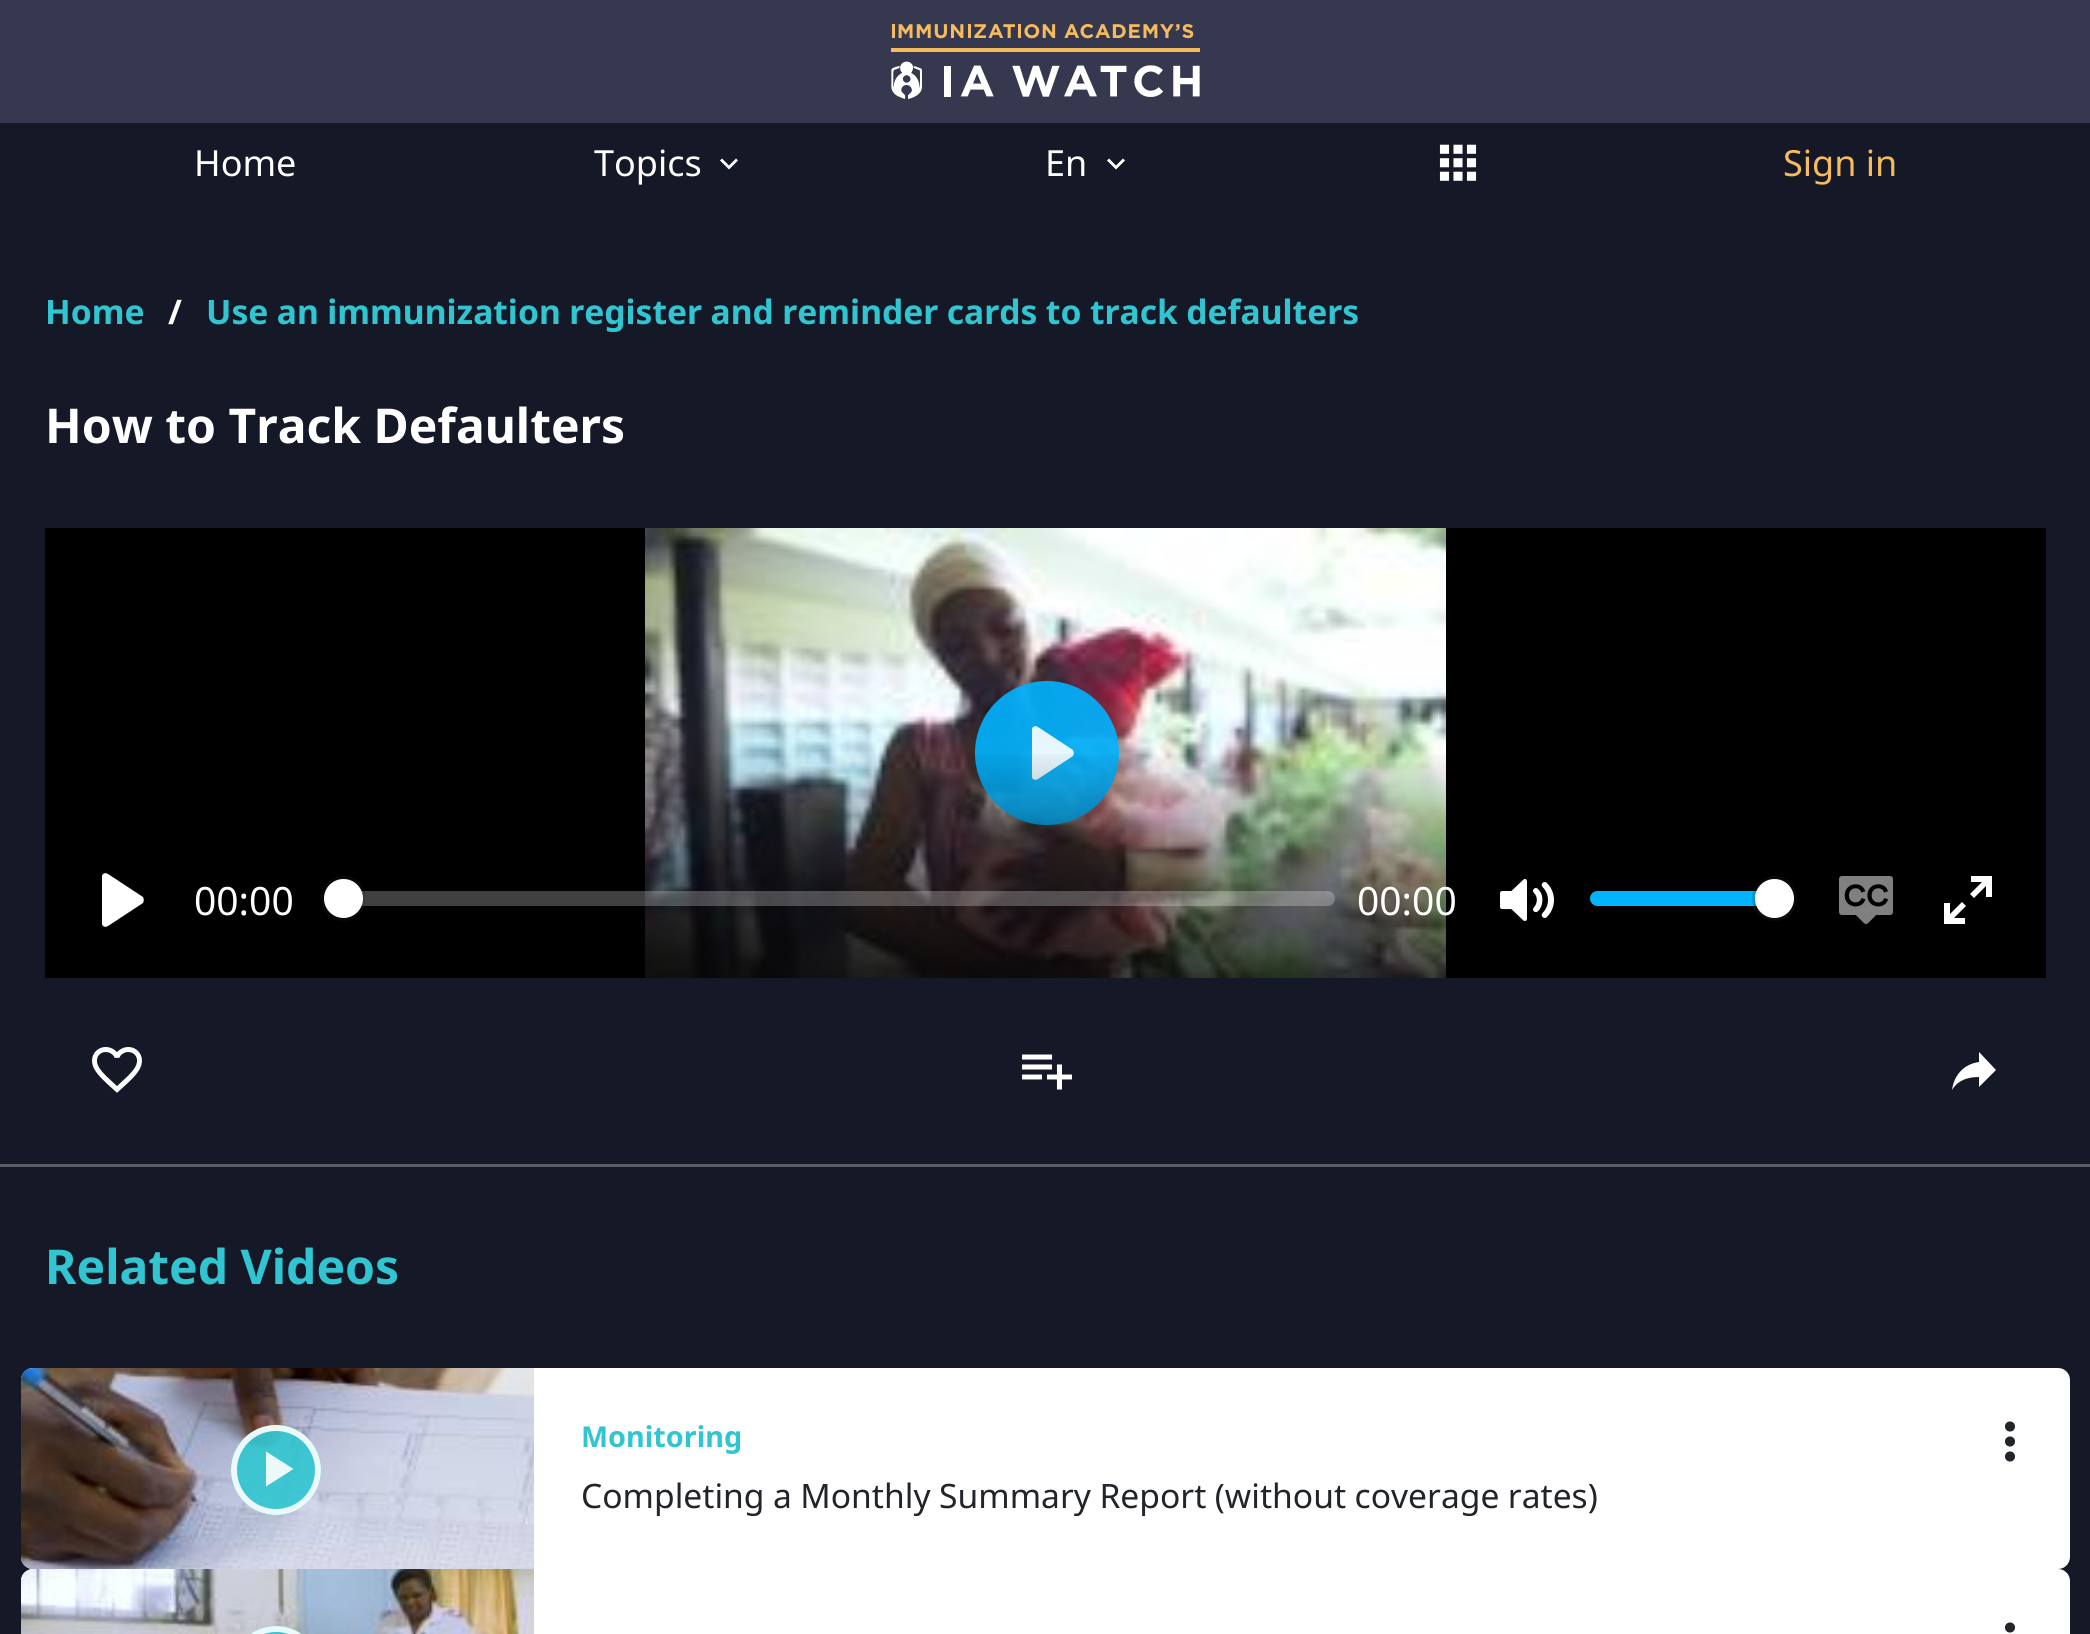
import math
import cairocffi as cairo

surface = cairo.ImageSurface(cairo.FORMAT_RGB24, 2090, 1634)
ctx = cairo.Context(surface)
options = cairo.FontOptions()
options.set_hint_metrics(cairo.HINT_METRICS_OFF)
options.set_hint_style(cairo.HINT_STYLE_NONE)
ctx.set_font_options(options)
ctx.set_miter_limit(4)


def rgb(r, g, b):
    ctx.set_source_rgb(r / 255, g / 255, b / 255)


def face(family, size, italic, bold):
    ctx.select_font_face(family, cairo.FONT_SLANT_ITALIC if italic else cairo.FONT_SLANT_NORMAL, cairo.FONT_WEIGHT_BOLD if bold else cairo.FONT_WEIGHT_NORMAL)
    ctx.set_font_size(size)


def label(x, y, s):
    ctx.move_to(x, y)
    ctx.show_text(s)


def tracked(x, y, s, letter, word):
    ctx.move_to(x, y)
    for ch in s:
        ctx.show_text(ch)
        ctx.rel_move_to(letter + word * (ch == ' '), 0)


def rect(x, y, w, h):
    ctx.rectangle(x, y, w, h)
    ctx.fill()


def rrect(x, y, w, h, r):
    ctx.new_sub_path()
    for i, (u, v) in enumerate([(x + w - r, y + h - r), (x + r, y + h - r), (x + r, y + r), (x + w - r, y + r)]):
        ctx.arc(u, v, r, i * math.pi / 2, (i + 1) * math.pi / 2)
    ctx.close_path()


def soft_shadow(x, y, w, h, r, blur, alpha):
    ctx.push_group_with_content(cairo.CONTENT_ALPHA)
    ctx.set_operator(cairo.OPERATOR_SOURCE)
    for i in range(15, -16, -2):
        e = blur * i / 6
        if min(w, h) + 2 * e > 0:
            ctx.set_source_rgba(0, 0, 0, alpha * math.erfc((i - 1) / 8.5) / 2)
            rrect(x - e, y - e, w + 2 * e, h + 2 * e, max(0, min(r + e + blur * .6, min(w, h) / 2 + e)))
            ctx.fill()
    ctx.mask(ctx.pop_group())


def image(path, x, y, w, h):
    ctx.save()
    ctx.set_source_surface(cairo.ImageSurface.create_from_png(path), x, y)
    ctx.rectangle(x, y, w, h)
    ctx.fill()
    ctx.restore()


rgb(21, 24, 38)
ctx.paint()
rgb(53, 56, 79)
rect(0, 0, 2090, 123)
image('image0.png', 891, 24, 309, 75)
face('Noto Sans', 36, 0, 0)
rgb(255, 255, 255)
label(194, 176, 'Home')
label(594, 176, 'Topics')
ctx.new_path()
ctx.move_to(722, 158.5)
ctx.line_to(729, 165.5)
ctx.line_to(736, 158.5)
ctx.line_to(738, 160.5)
ctx.line_to(729, 169.5)
ctx.line_to(720, 160.5)
ctx.close_path()
ctx.fill()
label(1045, 176, 'En')
ctx.new_path()
ctx.move_to(1109, 158.5)
ctx.line_to(1116, 165.5)
ctx.line_to(1123, 158.5)
ctx.line_to(1125, 160.5)
ctx.line_to(1116, 169.5)
ctx.line_to(1107, 160.5)
ctx.close_path()
ctx.fill()
image('image1.png', 1439, 144, 38, 37)
rgb(246, 187, 92)
label(1783, 176, 'Sign in')
face('Noto Sans', 33.6, 0, 1)
rgb(48, 197, 208)
label(45, 324, 'Home')
rgb(255, 255, 255)
label(168, 324, '/')
rgb(48, 197, 208)
tracked(206, 324, 'Use an immunization register and reminder cards to track defaulters', 0, -0.25)
face('Noto Sans', 48, 0, 1)
rgb(255, 255, 255)
label(45, 443, 'How to Track Defaulters')
rgb(0, 0, 0)
rect(45, 528, 2001, 450)
image('image2.png', 645, 528, 801, 450)
ctx.set_source_rgba(0, 0.702, 1, 0.9)
ctx.arc(1047, 753, 72, 0, 2 * math.pi)
ctx.fill()
ctx.set_source_rgba(1, 1, 1, 0.9)
ctx.new_path()
ctx.move_to(1073, 750)
ctx.line_to(1038, 727)
ctx.curve_to(1035, 725, 1032, 727, 1032, 729)
ctx.line_to(1032, 777)
ctx.curve_to(1032, 779, 1035, 781, 1038, 779)
ctx.line_to(1073, 756)
ctx.curve_to(1074, 754, 1074, 752, 1073, 750)
ctx.close_path()
ctx.fill()
gradient = cairo.LinearGradient(1046, 747, 1046, 978)
gradient.add_color_stop_rgba(0, 0, 0, 0, 0)
gradient.add_color_stop_rgba(1, 0, 0, 0, 0.75)
ctx.set_source(gradient)
rect(645, 754, 801, 224)
rgb(255, 255, 255)
ctx.new_path()
ctx.move_to(143, 897)
ctx.line_to(108, 874)
ctx.curve_to(105, 872, 102, 874, 102, 876)
ctx.line_to(102, 924)
ctx.curve_to(102, 926, 105, 928, 108, 926)
ctx.line_to(143, 903)
ctx.curve_to(144, 901, 144, 899, 143, 897)
ctx.close_path()
ctx.fill()
face('Noto Sans', 39, 0, 0)
label(194, 915, '00:00')
ctx.set_source_rgba(1, 1, 1, 0.25)
rrect(324, 891, 1011, 15, 7.5)
ctx.fill()
ctx.arc(343.5, 898.5, 21, 0, 2 * math.pi)
ctx.set_source_rgba(0.137, 0.157, 0.184, 0.2)
ctx.set_line_width(3)
ctx.stroke()
rgb(255, 255, 255)
ctx.arc(343.5, 898.5, 19.5, 0, 2 * math.pi)
ctx.fill()
label(1357, 915, '00:00')
image('image3.png', 1500, 879, 54, 42)
rgb(0, 179, 255)
rrect(1590, 891, 204, 15, 7.5)
ctx.fill()
ctx.arc(1774.5, 898.5, 21, 0, 2 * math.pi)
ctx.set_source_rgba(0.137, 0.157, 0.184, 0.2)
ctx.stroke()
rgb(35, 40, 47)
soft_shadow(1755, 882, 39, 39, 19.5, 1.5, 0.15)
rgb(255, 255, 255)
ctx.arc(1774.5, 898.5, 19.5, 0, 2 * math.pi)
ctx.fill()
image('image4.png', 1839, 876, 54, 48)
ctx.new_path()
ctx.move_to(1971, 882)
ctx.line_to(1982, 882)
ctx.line_to(1970, 894)
ctx.line_to(1974, 898)
ctx.line_to(1986, 886)
ctx.line_to(1986, 897)
ctx.line_to(1992, 897)
ctx.line_to(1992, 876)
ctx.line_to(1971, 876)
ctx.close_path()
ctx.move_to(1962, 902)
ctx.line_to(1950, 914)
ctx.line_to(1950, 903)
ctx.line_to(1944, 903)
ctx.line_to(1944, 924)
ctx.line_to(1965, 924)
ctx.line_to(1965, 918)
ctx.line_to(1954, 918)
ctx.line_to(1966, 906)
ctx.close_path()
ctx.fill()
image('image5.png', 92, 1047, 50, 46)
image('image6.png', 1022, 1054, 50, 36)
ctx.new_path()
ctx.move_to(1996, 1070)
ctx.line_to(1979, 1052)
ctx.line_to(1979, 1062)
ctx.curve_to(1964, 1064, 1954, 1075, 1952, 1090)
ctx.curve_to(1958, 1080, 1968, 1077, 1979, 1077)
ctx.line_to(1979, 1087)
ctx.close_path()
ctx.fill()
rgb(91, 93, 103)
rect(0, 1164, 2090, 3)
face('Noto Sans', 48, 0, 1)
rgb(48, 197, 208)
label(45, 1284, 'Related Videos')
rgb(255, 255, 255)
rrect(21, 1368, 2049, 201, 12)
ctx.fill()
image('image7.png', 21, 1368, 513, 201)
ctx.set_source_rgba(0.188, 0.773, 0.816, 0.9)
ctx.arc(276, 1470, 45, 0, 2 * math.pi)
ctx.fill()
ctx.arc(276, 1470, 42, 0, 2 * math.pi)
ctx.set_source_rgba(1, 1, 1, 0.9)
ctx.set_line_width(6)
ctx.stroke()
ctx.new_path()
ctx.move_to(266, 1451.5)
ctx.line_to(266, 1486.5)
ctx.line_to(293.5, 1469)
ctx.close_path()
ctx.fill()
face('Noto Sans', 28.75, 0, 1)
rgb(48, 197, 208)
label(581, 1447, 'Monitoring')
image('image8.png', 2005, 1421, 10, 41)
face('Noto Sans', 33.6, 0, 0)
rgb(33, 37, 41)
tracked(581, 1508, 'Completing a Monthly Summary Report (without coverage rates)', 0, -0.25)
rgb(255, 255, 255)
rrect(21, 1569, 2049, 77, 12)
ctx.fill()
image('image9.png', 21, 1569, 513, 65)
ctx.set_source_rgba(0.188, 0.773, 0.816, 0.9)
rrect(231, 1626, 90, 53, 45)
ctx.fill()
rrect(234, 1629, 84, 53, 42)
ctx.set_source_rgba(1, 1, 1, 0.9)
ctx.stroke()
image('image10.png', 2005, 1622, 10, 11)
surface.write_to_png('render.png')
